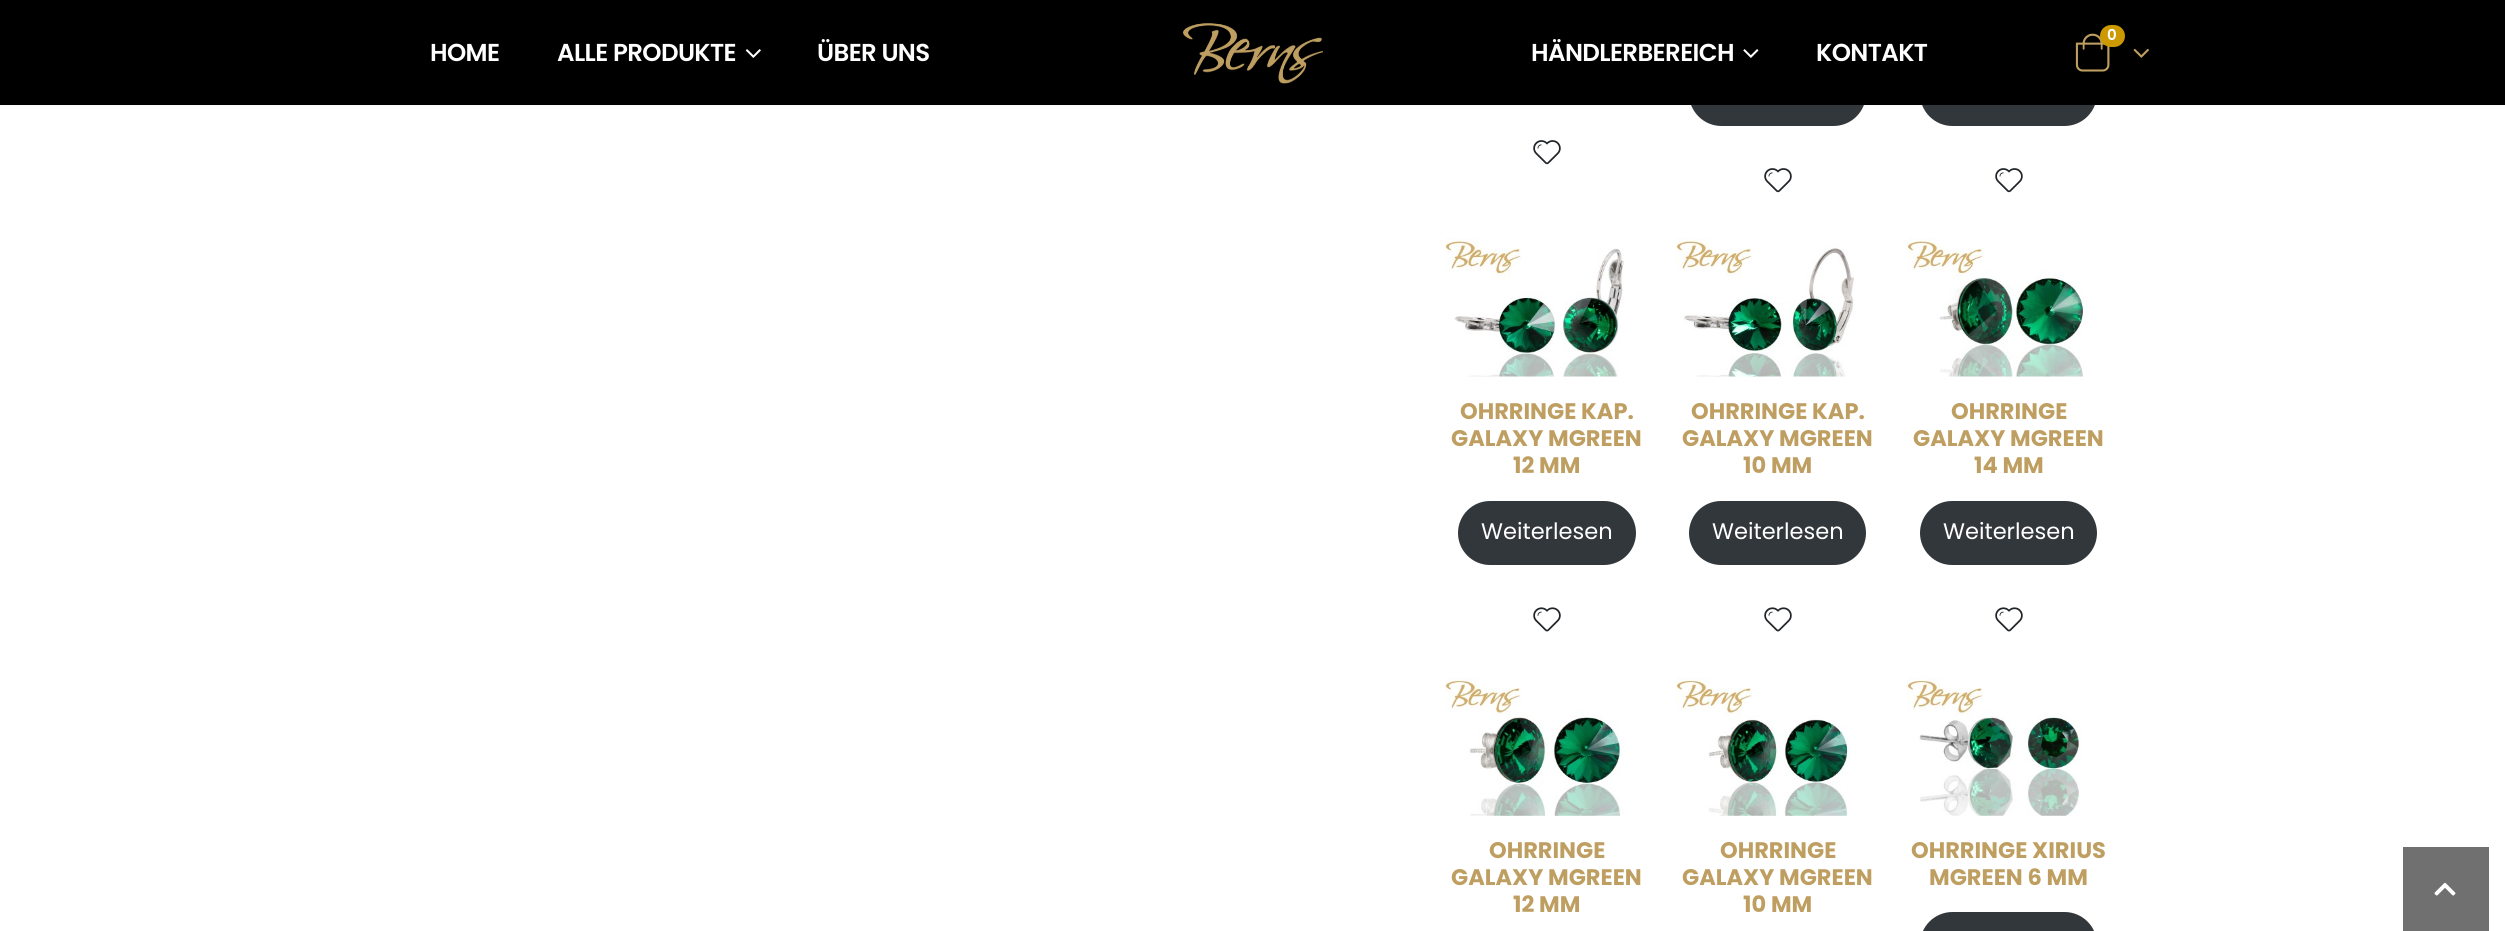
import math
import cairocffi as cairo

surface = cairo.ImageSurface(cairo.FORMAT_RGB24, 2505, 931)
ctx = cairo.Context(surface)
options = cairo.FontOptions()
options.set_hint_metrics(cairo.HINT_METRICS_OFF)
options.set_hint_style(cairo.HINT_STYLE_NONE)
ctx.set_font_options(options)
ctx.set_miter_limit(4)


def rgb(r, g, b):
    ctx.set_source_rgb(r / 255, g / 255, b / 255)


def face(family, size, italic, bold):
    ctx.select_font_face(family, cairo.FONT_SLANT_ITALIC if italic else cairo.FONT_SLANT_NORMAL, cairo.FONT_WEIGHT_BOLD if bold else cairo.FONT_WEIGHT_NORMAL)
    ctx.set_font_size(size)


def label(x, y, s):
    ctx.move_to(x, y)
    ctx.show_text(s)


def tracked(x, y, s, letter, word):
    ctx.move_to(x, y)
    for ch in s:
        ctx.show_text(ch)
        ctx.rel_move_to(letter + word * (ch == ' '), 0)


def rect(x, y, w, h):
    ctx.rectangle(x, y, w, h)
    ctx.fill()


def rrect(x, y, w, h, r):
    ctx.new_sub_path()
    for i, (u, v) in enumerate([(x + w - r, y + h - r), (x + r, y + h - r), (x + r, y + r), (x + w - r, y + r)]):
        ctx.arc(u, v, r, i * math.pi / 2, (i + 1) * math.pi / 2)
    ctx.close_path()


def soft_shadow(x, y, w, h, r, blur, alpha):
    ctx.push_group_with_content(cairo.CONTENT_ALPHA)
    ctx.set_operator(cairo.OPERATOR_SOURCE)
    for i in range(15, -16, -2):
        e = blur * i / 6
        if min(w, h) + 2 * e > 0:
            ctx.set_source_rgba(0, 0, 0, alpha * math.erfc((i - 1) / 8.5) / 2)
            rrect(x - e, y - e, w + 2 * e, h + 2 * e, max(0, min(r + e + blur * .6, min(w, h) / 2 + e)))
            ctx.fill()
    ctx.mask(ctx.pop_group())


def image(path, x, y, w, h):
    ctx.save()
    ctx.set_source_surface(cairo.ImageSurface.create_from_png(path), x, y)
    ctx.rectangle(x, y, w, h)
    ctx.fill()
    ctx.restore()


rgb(255, 255, 255)
ctx.paint()
rgb(50, 55, 60)
rrect(1689, 61, 177, 65, 32.5)
ctx.fill()
rrect(1920, 61, 177, 65, 32.5)
ctx.fill()
rgb(0, 0, 0)
soft_shadow(0, 0, 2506, 105, 0, 2.5, 0.06)
rgb(0, 0, 0)
rect(0, 0, 2505, 105)
face('Poppins SemiBold', 24.5, 0, 0)
rgb(255, 255, 255)
tracked(430, 61, 'HOME', -0.6, 0)
tracked(557, 61, 'ALLE PRODUKTE', -0.6, 0)
image('image0.png', 745, 49, 16, 9)
tracked(817, 61, 'ÜBER UNS', -0.6, 0)
image('image1.png', 1183, 23, 140, 61)
image('image2.png', 2075, 33, 35, 39)
rgb(204, 153, 0)
rrect(2100, 25, 25, 22, 11)
ctx.fill()
face('Poppins SemiBold', 15, 0, 0)
rgb(255, 255, 255)
label(2107, 40, '0')
image('image3.png', 2133, 48, 16, 10)
face('Poppins SemiBold', 24.5, 0, 0)
tracked(1531, 61, 'HÄNDLERBEREICH', -0.6, 0)
image('image4.png', 1743, 49, 16, 9)
tracked(1816, 61, 'KONTAKT', -0.6, 0)
image('image5.png', 1533, 140, 28, 25)
image('image5.png', 1764, 168, 28, 25)
image('image5.png', 1995, 168, 28, 25)
image('image6.png', 1445, 238, 179, 139)
face('Poppins', 22.5, 0, 1)
rgb(191, 159, 97)
label(1460, 419, 'OHRRINGE KAP.')
label(1451, 446, 'GALAXY MGREEN')
label(1513, 473, '12 MM')
rgb(50, 55, 60)
rrect(1458, 501, 178, 64, 32)
ctx.fill()
face('Poppins', 22.5, 0, 0)
rgb(255, 255, 255)
label(1481, 539, 'Weiterlesen')
image('image7.png', 1533, 607, 28, 25)
image('image8.png', 1676, 238, 179, 139)
face('Poppins', 22.5, 0, 1)
rgb(191, 159, 97)
label(1691, 419, 'OHRRINGE KAP.')
label(1682, 446, 'GALAXY MGREEN')
label(1743, 473, '10 MM')
rgb(50, 55, 60)
rrect(1689, 501, 177, 64, 32)
ctx.fill()
face('Poppins', 22.5, 0, 0)
rgb(255, 255, 255)
label(1712, 539, 'Weiterlesen')
image('image7.png', 1764, 607, 28, 25)
image('image9.png', 1907, 238, 182, 139)
face('Poppins', 22.5, 0, 1)
rgb(191, 159, 97)
label(1951, 419, 'OHRRINGE')
label(1913, 446, 'GALAXY MGREEN')
label(1974, 473, '14 MM')
rgb(50, 55, 60)
rrect(1920, 501, 177, 64, 32)
ctx.fill()
face('Poppins', 22.5, 0, 0)
rgb(255, 255, 255)
label(1943, 539, 'Weiterlesen')
image('image7.png', 1995, 607, 28, 25)
image('image10.png', 1445, 677, 179, 139)
face('Poppins', 22.5, 0, 1)
rgb(191, 159, 97)
label(1489, 858, 'OHRRINGE')
label(1451, 885, 'GALAXY MGREEN')
label(1513, 912, '12 MM')
image('image11.png', 1676, 677, 174, 139)
label(1720, 858, 'OHRRINGE')
label(1682, 885, 'GALAXY MGREEN')
label(1743, 912, '10 MM')
image('image12.png', 1907, 677, 174, 139)
label(1911, 858, 'OHRRINGE XIRIUS')
label(1929, 885, 'MGREEN 6 MM')
rgb(50, 55, 60)
rrect(1920, 912, 177, 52, 32.5)
ctx.fill()
rgb(112, 112, 112)
rect(2403, 847, 86, 84)
image('image13.png', 2434, 882, 22, 14)
surface.write_to_png('render.png')
